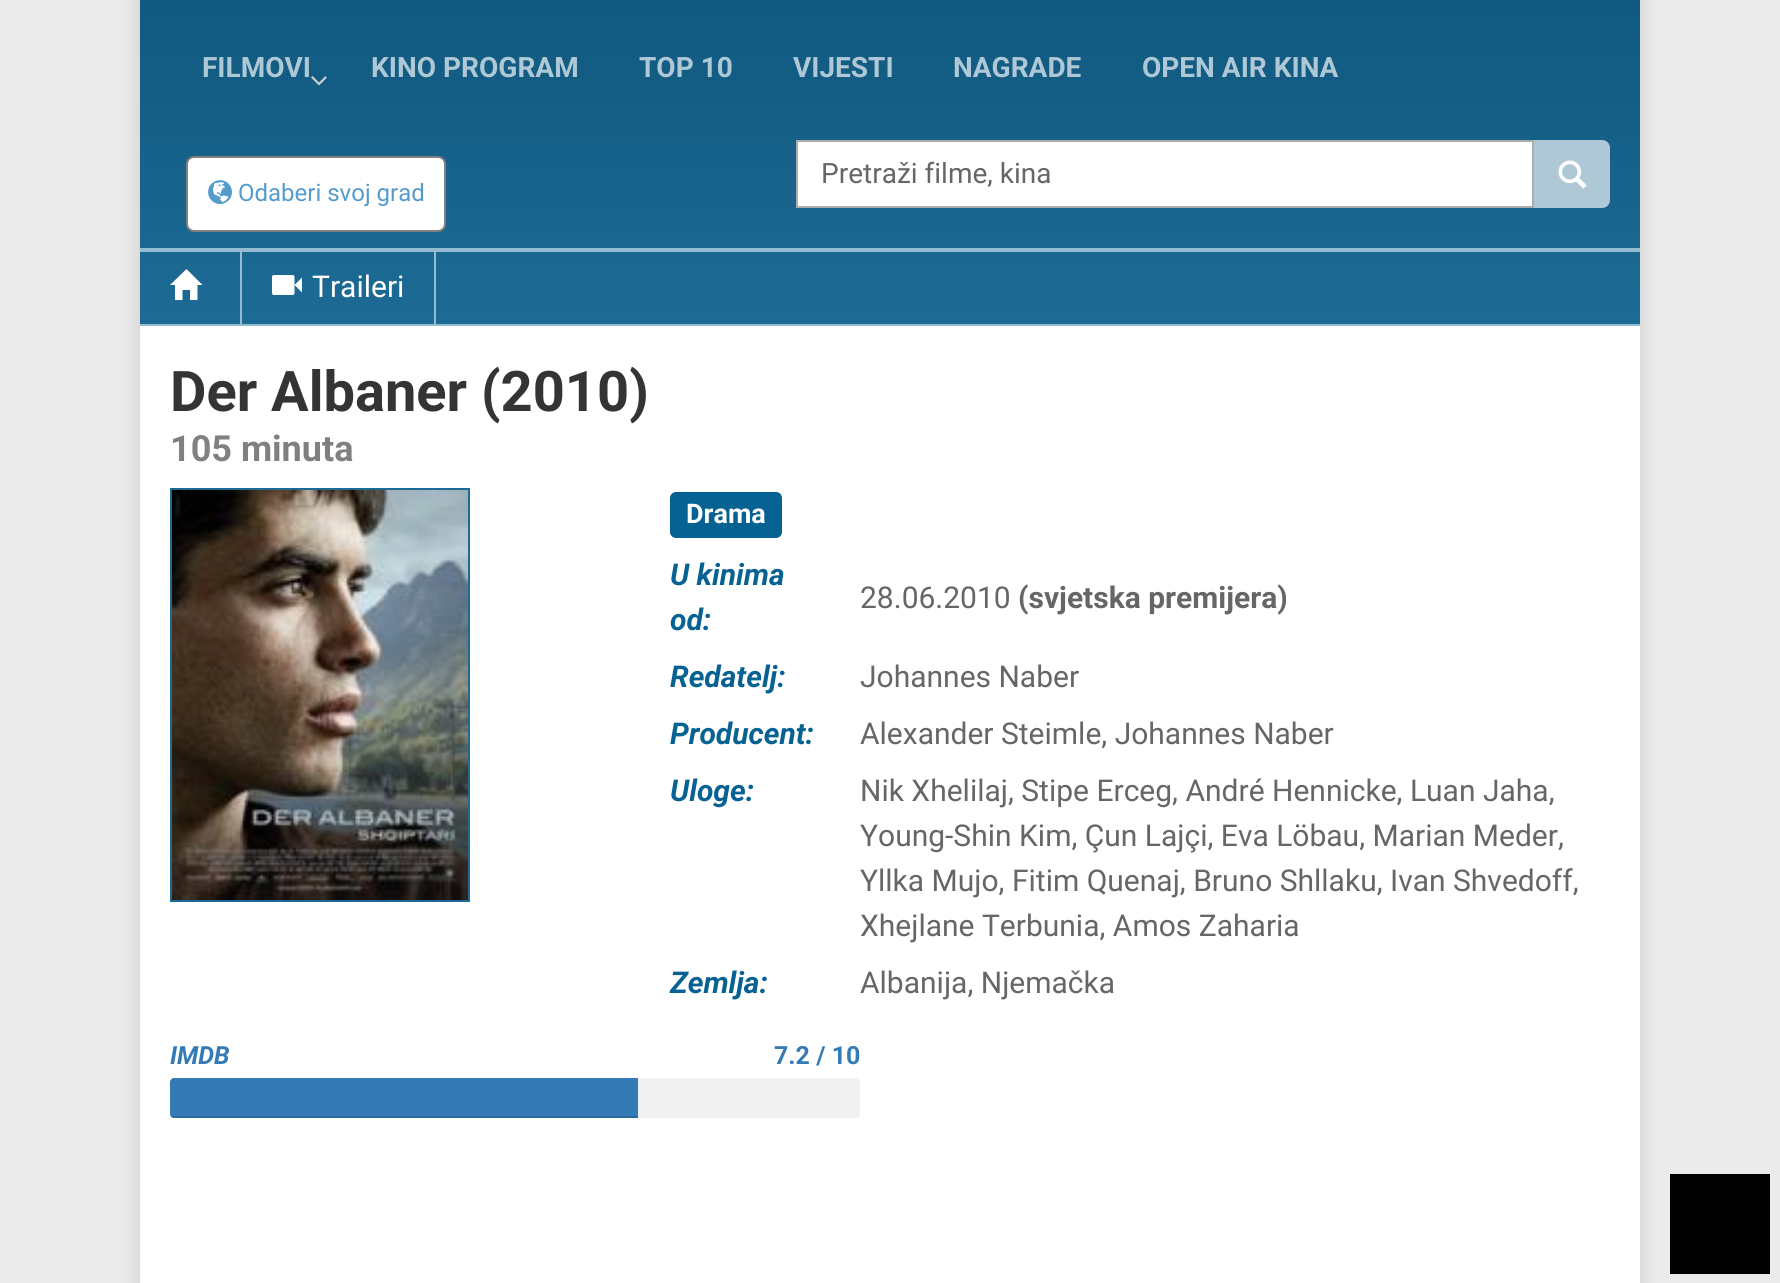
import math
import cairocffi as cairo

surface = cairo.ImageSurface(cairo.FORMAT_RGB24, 1780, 1283)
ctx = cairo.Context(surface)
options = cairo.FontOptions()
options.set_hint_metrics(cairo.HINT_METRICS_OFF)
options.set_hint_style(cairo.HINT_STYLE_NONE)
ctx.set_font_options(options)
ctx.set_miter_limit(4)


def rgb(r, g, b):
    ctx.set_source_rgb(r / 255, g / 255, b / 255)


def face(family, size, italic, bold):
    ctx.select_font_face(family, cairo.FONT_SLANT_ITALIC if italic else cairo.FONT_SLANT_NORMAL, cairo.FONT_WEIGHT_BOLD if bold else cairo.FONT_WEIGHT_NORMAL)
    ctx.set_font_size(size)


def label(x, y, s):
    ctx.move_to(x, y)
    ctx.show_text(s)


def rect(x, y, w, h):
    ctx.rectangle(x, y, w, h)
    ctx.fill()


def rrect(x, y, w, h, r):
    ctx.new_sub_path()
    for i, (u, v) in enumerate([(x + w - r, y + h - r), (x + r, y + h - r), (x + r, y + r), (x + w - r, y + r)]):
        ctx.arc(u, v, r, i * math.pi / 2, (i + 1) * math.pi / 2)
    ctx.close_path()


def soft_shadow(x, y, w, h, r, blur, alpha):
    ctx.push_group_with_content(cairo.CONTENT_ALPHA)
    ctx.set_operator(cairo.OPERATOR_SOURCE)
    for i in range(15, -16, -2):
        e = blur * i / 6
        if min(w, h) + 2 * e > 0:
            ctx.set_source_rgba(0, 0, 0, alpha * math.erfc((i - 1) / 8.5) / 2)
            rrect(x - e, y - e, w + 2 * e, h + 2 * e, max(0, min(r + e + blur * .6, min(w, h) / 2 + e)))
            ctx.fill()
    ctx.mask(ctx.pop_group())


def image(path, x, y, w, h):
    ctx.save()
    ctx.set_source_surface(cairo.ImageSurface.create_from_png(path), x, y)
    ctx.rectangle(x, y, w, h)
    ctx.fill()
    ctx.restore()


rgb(235, 235, 235)
ctx.paint()
rgb(202, 202, 202)
soft_shadow(140, -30, 1500, 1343, 0, 10, 1)
rgb(255, 255, 255)
rect(140, 326, 1500, 957)
gradient = cairo.LinearGradient(890, -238, 890, 324)
gradient.add_color_stop_rgba(0, 0.027, 0.294, 0.435, 1)
gradient.add_color_stop_rgba(1, 0.114, 0.42, 0.584, 1)
ctx.set_source(gradient)
rect(140, 0, 1500, 324)
rgb(148, 188, 209)
rect(140, 324, 1500, 2)
face('Roboto', 28, 0, 1)
rgb(174, 200, 214)
label(202, 77, 'FILMOVI')
image('image0.png', 311, 76, 16, 10)
label(371, 77, 'KINO PROGRAM')
label(639, 77, 'TOP 10')
label(793, 77, 'VIJESTI')
label(953, 77, 'NAGRADE')
label(1142, 77, 'OPEN AIR KINA')
rgb(255, 255, 255)
ctx.rectangle(797, 141, 736, 66)
ctx.fill_preserve()
rgb(172, 172, 172)
ctx.stroke()
face('Roboto', 28, 0, 0)
rgb(102, 102, 102)
label(821, 183, 'Pretraži filme, kina')
rgb(174, 200, 214)
ctx.new_path()
ctx.move_to(1534, 140)
ctx.line_to(1602, 140)
ctx.curve_to(1606.5, 140, 1610, 143.5, 1610, 148)
ctx.line_to(1610, 200)
ctx.curve_to(1610, 204.5, 1606.5, 208, 1602, 208)
ctx.line_to(1534, 208)
ctx.close_path()
ctx.fill()
image('image1.png', 1558, 160, 29, 29)
rgb(255, 255, 255)
rrect(187, 157, 258, 74, 7)
ctx.fill_preserve()
rgb(128, 128, 128)
ctx.stroke()
image('image2.png', 208, 180, 24, 24)
face('Roboto', 24, 0, 0)
rgb(85, 155, 204)
label(238, 201, 'Odaberi svoj grad')
rgb(148, 188, 209)
rect(140, 248, 1500, 4)
rect(240, 252, 2, 72)
rgb(255, 255, 255)
ctx.new_path()
ctx.move_to(170, 285)
ctx.line_to(186.5, 269)
ctx.line_to(202.5, 285)
ctx.line_to(197.5, 285)
ctx.line_to(197.5, 300)
ctx.line_to(190, 300)
ctx.line_to(190, 290)
ctx.line_to(182.5, 290)
ctx.line_to(182.5, 300)
ctx.line_to(175, 300)
ctx.line_to(175, 285)
ctx.close_path()
ctx.fill()
rgb(148, 188, 209)
rect(434, 252, 2, 72)
image('image3.png', 272, 275, 30, 20)
face('Roboto', 30, 0, 0)
rgb(255, 255, 255)
label(312, 297, 'Traileri')
face('Roboto', 56, 0, 1)
rgb(52, 52, 52)
label(170, 411, 'Der Albaner (2010)')
face('Roboto', 36, 0, 1)
rgb(128, 128, 128)
label(170, 461, '105 minuta')
ctx.rectangle(171, 489, 298, 412)
rgb(29, 107, 149)
ctx.stroke()
image('image4.png', 172, 490, 296, 410)
rgb(7, 98, 148)
rrect(670, 492, 112, 46, 6)
ctx.fill()
face('Roboto', 27, 0, 1)
rgb(255, 255, 255)
label(686, 523, 'Drama')
face('Roboto', 30, 1, 1)
rgb(7, 98, 148)
label(670, 585, 'U kinima')
label(670, 630, 'od:')
face('Roboto', 30, 0, 0)
rgb(102, 102, 102)
label(860, 608, '28.06.2010')
face('Roboto', 30, 0, 1)
label(1018, 608, '(svjetska premijera)')
face('Roboto', 30, 1, 1)
rgb(7, 98, 148)
label(670, 687, 'Redatelj:')
face('Roboto', 30, 0, 0)
rgb(102, 102, 102)
label(860, 687, 'Johannes Naber')
face('Roboto', 30, 1, 1)
rgb(7, 98, 148)
label(670, 744, 'Producent:')
face('Roboto', 30, 0, 0)
rgb(102, 102, 102)
label(860, 744, 'Alexander Steimle, Johannes Naber')
face('Roboto', 30, 1, 1)
rgb(7, 98, 148)
label(670, 801, 'Uloge:')
face('Roboto', 30, 0, 0)
rgb(102, 102, 102)
label(860, 801, 'Nik Xhelilaj, Stipe Erceg, André Hennicke, Luan Jaha,')
label(860, 846, 'Young-Shin Kim, Çun Lajçi, Eva Löbau, Marian Meder,')
label(860, 891, 'Yllka Mujo, Fitim Quenaj, Bruno Shllaku, Ivan Shvedoff,')
label(860, 936, 'Xhejlane Terbunia, Amos Zaharia')
face('Roboto', 30, 1, 1)
rgb(7, 98, 148)
label(670, 993, 'Zemlja:')
face('Roboto', 30, 0, 0)
rgb(102, 102, 102)
label(860, 993, 'Albanija, Njemačka')
face('Roboto', 25, 1, 1)
rgb(51, 122, 183)
label(170, 1064, 'IMDB')
face('Roboto', 25, 0, 1)
label(774, 1064, '7.2 / 10')
rgb(241, 241, 241)
rrect(170, 1078, 690, 40, 4)
ctx.fill()
rgb(51, 122, 183)
ctx.new_path()
ctx.move_to(174, 1078)
ctx.line_to(638, 1078)
ctx.line_to(638, 1118)
ctx.line_to(174, 1118)
ctx.curve_to(172, 1118, 170, 1116, 170, 1114)
ctx.line_to(170, 1082)
ctx.curve_to(170, 1080, 172, 1078, 174, 1078)
ctx.close_path()
ctx.fill()
ctx.save()
rrect(170, 1078, 690, 40, 4)
ctx.clip()
ctx.set_source_rgba(0, 0, 0, 0.15)
rect(170, 1116, 468, 2)
ctx.restore()
rgb(0, 0, 0)
rect(1670, 1174, 100, 100)
surface.write_to_png('render.png')
